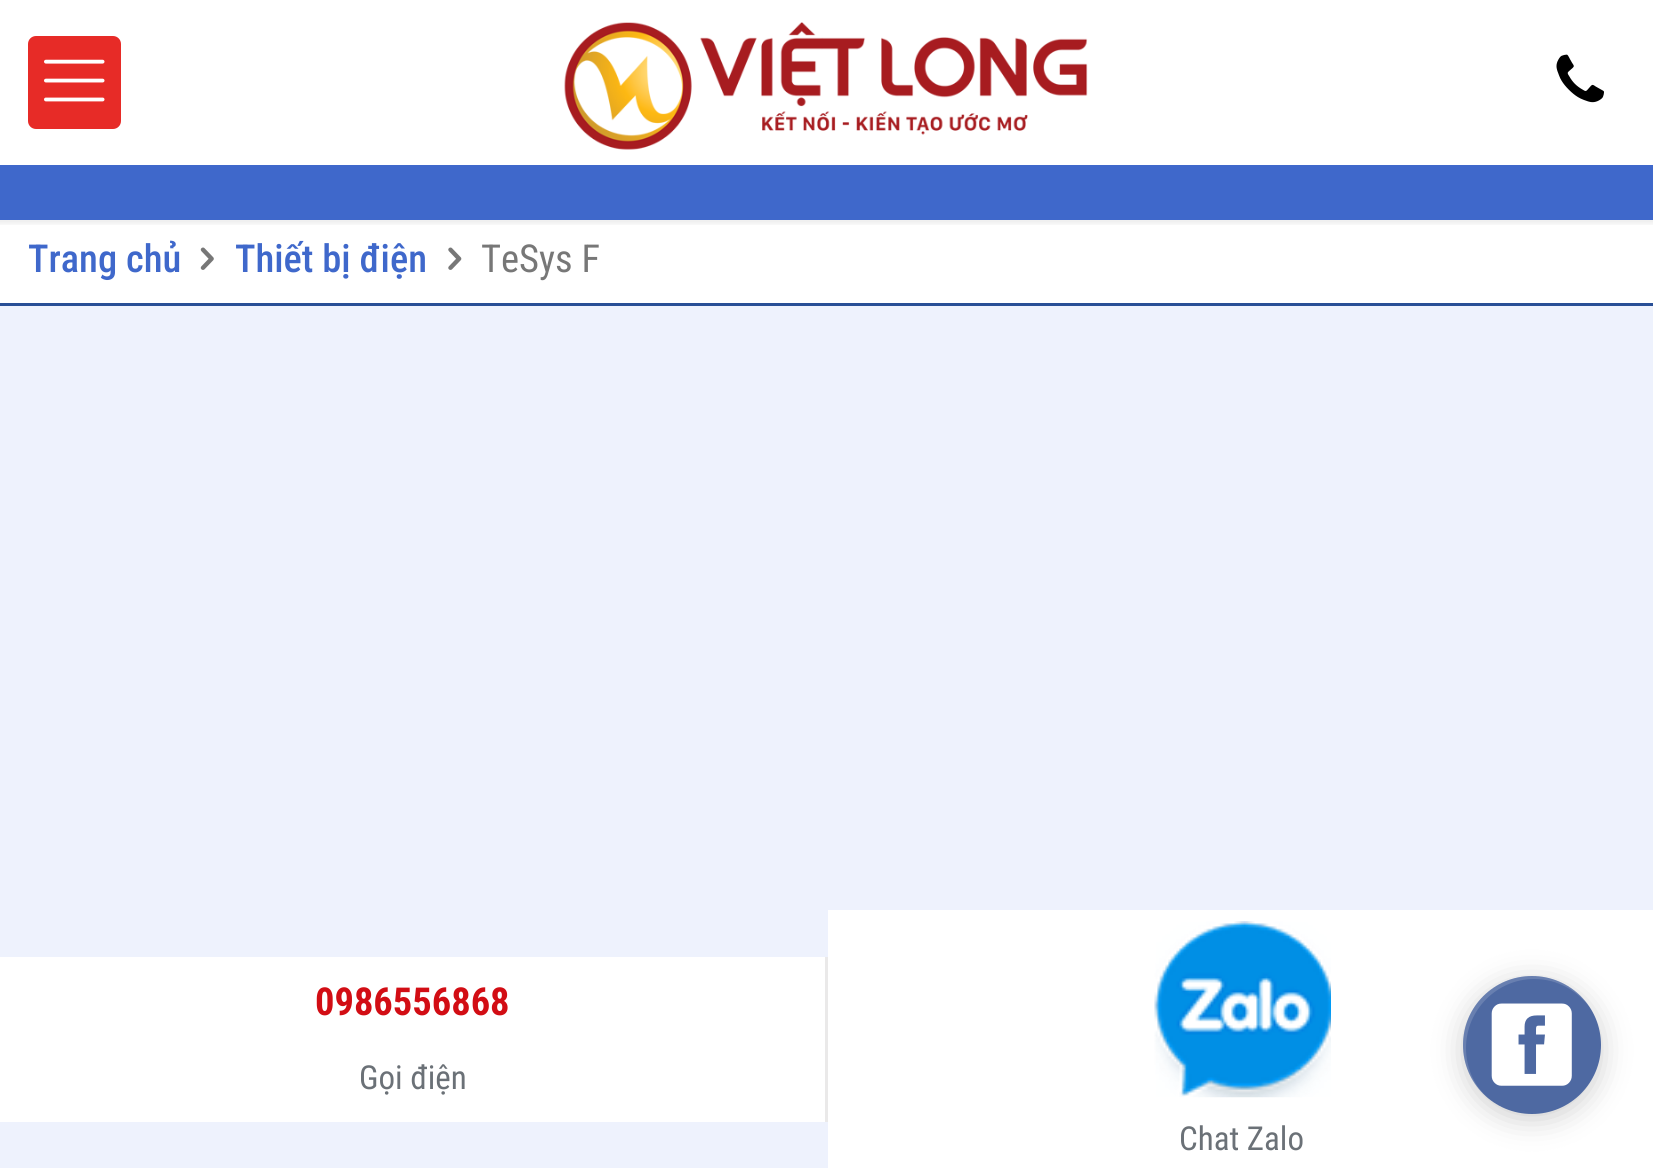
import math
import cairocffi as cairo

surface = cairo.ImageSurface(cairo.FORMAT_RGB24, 1653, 1168)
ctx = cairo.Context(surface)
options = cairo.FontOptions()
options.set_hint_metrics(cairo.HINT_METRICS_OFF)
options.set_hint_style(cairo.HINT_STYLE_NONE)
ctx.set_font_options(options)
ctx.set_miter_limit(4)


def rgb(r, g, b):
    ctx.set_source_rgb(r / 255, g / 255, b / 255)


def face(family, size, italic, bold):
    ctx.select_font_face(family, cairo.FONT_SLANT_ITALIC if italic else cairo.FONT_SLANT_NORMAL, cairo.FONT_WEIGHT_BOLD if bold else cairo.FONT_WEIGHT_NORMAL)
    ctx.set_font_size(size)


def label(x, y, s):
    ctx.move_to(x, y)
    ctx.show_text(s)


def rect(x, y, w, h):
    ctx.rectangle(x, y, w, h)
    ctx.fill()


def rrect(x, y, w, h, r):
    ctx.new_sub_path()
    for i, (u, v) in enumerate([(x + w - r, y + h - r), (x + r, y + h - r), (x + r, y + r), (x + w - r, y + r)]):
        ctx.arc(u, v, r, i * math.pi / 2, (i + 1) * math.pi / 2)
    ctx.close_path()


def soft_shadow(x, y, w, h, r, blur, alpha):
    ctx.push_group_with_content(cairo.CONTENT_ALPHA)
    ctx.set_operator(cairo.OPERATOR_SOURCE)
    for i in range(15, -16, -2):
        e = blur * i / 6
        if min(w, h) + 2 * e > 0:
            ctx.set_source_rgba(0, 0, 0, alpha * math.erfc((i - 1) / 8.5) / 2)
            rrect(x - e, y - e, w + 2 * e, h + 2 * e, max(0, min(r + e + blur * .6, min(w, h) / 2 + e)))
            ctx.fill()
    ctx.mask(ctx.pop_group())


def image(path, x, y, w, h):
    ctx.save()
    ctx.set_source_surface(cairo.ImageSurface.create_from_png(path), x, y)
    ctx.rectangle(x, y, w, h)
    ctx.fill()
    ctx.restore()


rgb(238, 242, 253)
ctx.paint()
rgb(255, 255, 255)
rect(0, 0, 1653, 165)
image('image0.png', 564, 22, 524, 128)
rgb(231, 43, 39)
rrect(28, 36, 93, 93, 8)
ctx.fill()
image('image1.png', 44, 59, 61, 43)
image('image2.png', 1556, 54, 48, 49)
rgb(63, 104, 203)
rect(0, 165, 1653, 55)
rgb(255, 255, 255)
rect(0, 220, 1653, 83)
image('image3.png', 0, 220, 1653, 5)
rgb(41, 79, 150)
rect(0, 303, 1653, 3)
face('Roboto Condensed Medium', 38.5, 0, 0)
rgb(63, 104, 203)
label(28, 272, 'Trang chủ')
image('image4.png', 200, 247, 14, 23)
label(235, 272, 'Thiết bị điện')
image('image5.png', 448, 247, 14, 23)
face('Roboto Condensed', 38.5, 0, 0)
rgb(119, 119, 119)
label(481, 272, 'TeSys F')
rgb(255, 255, 255)
rect(0, 957, 825, 165)
rgb(234, 233, 233)
rect(825, 957, 3, 165)
face('Roboto Condensed', 38.5, 0, 1)
rgb(210, 13, 20)
label(315, 1015, '0986556868')
face('Roboto Condensed', 33, 0, 0)
rgb(107, 113, 119)
label(359, 1089, 'Gọi điện')
rgb(255, 255, 255)
rect(828, 910, 825, 258)
image('image6.png', 1154, 921, 177, 177)
rgb(107, 113, 119)
label(1179, 1150, 'Chat Zalo')
rgb(128, 128, 128)
soft_shadow(1463, 982, 138, 137, 68.5, 15, 0.4)
rgb(78, 105, 162)
ctx.arc(1532, 1045, 69, 0, 2 * math.pi)
ctx.fill()
ctx.set_source_rgba(1, 1, 1, 0.15)
ctx.new_path()
ctx.move_to(1534, 979)
ctx.curve_to(1558, 979, 1578, 991, 1591, 1009)
ctx.curve_to(1579, 989, 1557, 976, 1532, 976)
ctx.curve_to(1494, 976, 1463, 1007, 1463, 1045)
ctx.curve_to(1463, 1067, 1473, 1087, 1489, 1099)
ctx.curve_to(1475, 1087, 1466, 1069, 1466, 1048)
ctx.curve_to(1466, 1010, 1497, 979, 1534, 979)
ctx.close_path()
ctx.fill()
image('image7.png', 1491, 1003, 81, 83)
surface.write_to_png('render.png')
